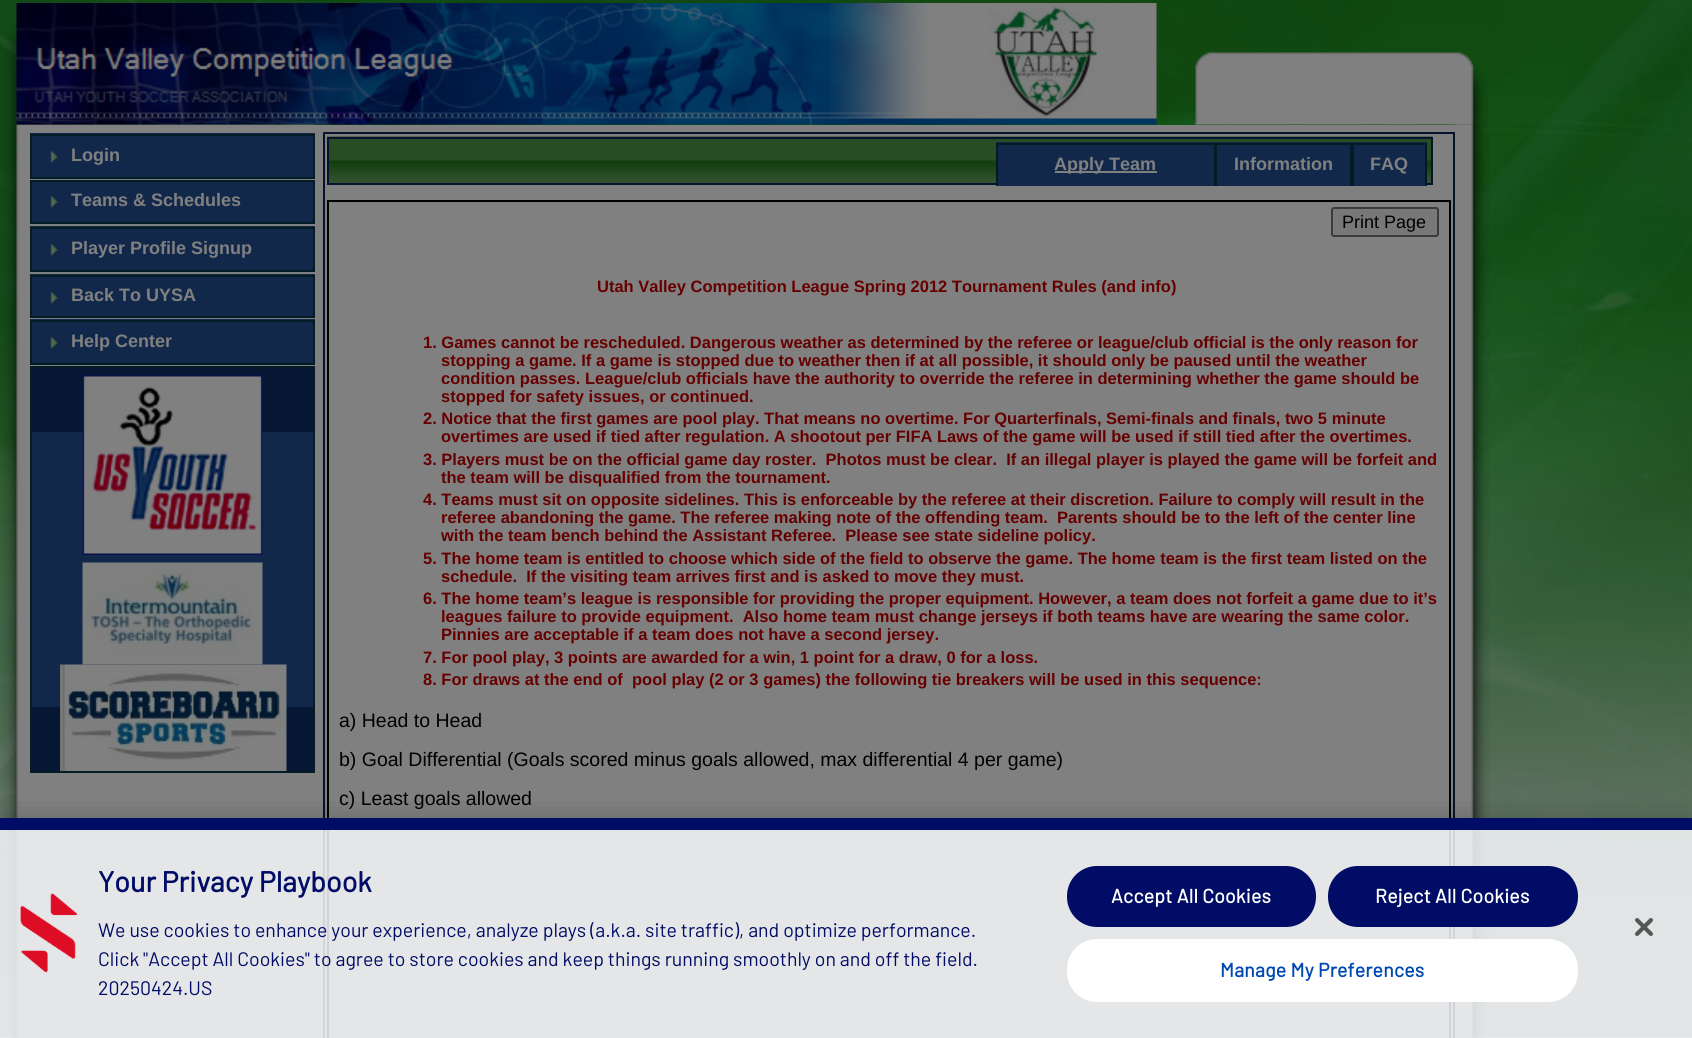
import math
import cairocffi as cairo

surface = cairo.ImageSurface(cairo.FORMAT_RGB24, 1692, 1038)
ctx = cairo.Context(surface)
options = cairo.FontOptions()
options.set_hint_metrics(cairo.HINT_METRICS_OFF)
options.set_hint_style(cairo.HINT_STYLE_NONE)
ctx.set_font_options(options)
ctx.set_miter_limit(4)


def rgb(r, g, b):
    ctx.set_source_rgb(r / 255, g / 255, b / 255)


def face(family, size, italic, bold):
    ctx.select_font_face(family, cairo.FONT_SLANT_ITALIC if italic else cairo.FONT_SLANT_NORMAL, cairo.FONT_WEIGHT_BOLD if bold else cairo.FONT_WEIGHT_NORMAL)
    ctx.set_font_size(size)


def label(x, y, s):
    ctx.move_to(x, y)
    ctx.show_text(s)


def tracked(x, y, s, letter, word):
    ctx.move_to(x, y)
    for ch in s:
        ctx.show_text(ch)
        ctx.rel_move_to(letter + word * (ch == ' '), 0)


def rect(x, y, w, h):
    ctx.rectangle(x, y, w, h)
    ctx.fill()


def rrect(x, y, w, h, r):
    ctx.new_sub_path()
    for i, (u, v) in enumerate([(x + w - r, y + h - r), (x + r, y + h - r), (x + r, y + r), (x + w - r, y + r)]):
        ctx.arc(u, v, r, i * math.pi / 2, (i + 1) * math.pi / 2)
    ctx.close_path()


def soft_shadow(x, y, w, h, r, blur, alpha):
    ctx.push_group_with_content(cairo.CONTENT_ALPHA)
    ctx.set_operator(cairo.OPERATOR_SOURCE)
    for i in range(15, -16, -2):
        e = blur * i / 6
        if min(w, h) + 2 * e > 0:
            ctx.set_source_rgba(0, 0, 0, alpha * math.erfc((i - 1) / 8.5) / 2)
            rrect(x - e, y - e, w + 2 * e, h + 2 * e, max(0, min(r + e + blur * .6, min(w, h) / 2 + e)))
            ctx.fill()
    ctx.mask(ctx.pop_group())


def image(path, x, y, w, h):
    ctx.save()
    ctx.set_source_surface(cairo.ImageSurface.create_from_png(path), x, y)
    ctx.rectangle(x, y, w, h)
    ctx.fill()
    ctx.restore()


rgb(255, 255, 255)
ctx.paint()
image('image0.png', 0, 0, 1692, 1038)
image('image1.png', 4, 22, 71, 103)
image('image4.png', 2, 124, 313, 914)
image('image2.png', 16, 3, 1141, 122)
image('image3.png', 1195, 52, 294, 73)
rgb(17, 40, 75)
rect(30, 133, 285, 44)
ctx.rectangle(31, 135, 283, 43)
rgb(3, 27, 36)
ctx.stroke()
image('image5.png', 50, 151, 8, 12)
face('Liberation Sans', 18, 0, 1)
rgb(128, 128, 128)
label(71, 161, 'Login')
rgb(17, 40, 75)
ctx.rectangle(31, 181, 283, 42)
ctx.fill_preserve()
rgb(3, 27, 36)
ctx.stroke()
image('image5.png', 50, 196, 8, 12)
rgb(128, 128, 128)
label(71, 206, 'Teams & Schedules')
rgb(17, 40, 75)
rect(30, 226, 285, 44)
ctx.rectangle(31, 228, 283, 43)
rgb(3, 27, 36)
ctx.stroke()
image('image5.png', 50, 244, 8, 12)
rgb(128, 128, 128)
label(71, 254, 'Player Profile Signup')
rgb(17, 40, 75)
rect(30, 274, 285, 42)
ctx.rectangle(31, 276, 283, 41)
rgb(3, 27, 36)
ctx.stroke()
image('image5.png', 50, 292, 8, 12)
rgb(128, 128, 128)
label(71, 301, 'Back To UYSA')
rgb(17, 40, 75)
rect(30, 319, 285, 44)
ctx.rectangle(31, 321, 283, 43)
rgb(3, 27, 36)
ctx.stroke()
image('image5.png', 50, 337, 8, 12)
rgb(128, 128, 128)
label(71, 347, 'Help Center')
rgb(5, 23, 51)
rect(32, 368, 281, 403)
rgb(17, 40, 75)
rect(32, 432, 281, 275)
ctx.rectangle(31, 367, 283, 405)
rgb(3, 27, 36)
ctx.stroke()
image('image6.png', 82, 375, 181, 180)
image('image7.png', 82, 562, 181, 103)
image('image8.png', 60, 664, 227, 107)
rgb(128, 128, 128)
rect(315, 125, 1140, 913)
ctx.rectangle(324, 133, 1130, 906)
rgb(7, 18, 47)
ctx.stroke()
image('image9.png', 327, 136, 1106, 47)
ctx.rectangle(328, 138, 1104, 46)
ctx.stroke()
rgb(17, 40, 75)
rect(996, 142, 431, 44)
rgb(3, 27, 36)
rect(996, 143, 431, 2)
rect(996, 143, 2, 43)
rgb(128, 128, 128)
rect(1055, 171, 102, 2)
label(1054, 170, 'Apply Team')
rgb(3, 27, 36)
rect(1214, 143, 3, 43)
rgb(128, 128, 128)
label(1234, 170, 'Information')
rgb(3, 27, 36)
rect(1425, 143, 2, 43)
rect(1350, 143, 4, 43)
rgb(128, 128, 128)
label(1370, 170, 'FAQ')
ctx.rectangle(328, 201, 1122, 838)
rgb(0, 0, 0)
ctx.stroke()
rgb(120, 120, 120)
rrect(1332, 208, 106, 28, 2)
ctx.fill_preserve()
rgb(59, 59, 59)
ctx.stroke()
face('Liberation Sans', 18, 0, 0)
rgb(0, 0, 0)
label(1342, 228, 'Print Page')
face('Liberation Sans', 16.5, 0, 1)
rgb(102, 0, 0)
label(597, 292, 'Utah Valley Competition League Spring 2012 Tournament Rules (and info)')
label(423, 348, '1. Games cannot be rescheduled. Dangerous weather as determined by the referee or league/club official is the only reason for')
label(441, 366, 'stopping a game. If a game is stopped due to weather then if at all possible, it should only be paused until the weather')
label(441, 384, 'condition passes. League/club officials have the authority to override the referee in determining whether the game should be')
label(441, 402, 'stopped for safety issues, or continued.')
label(423, 424, '2. Notice that the first games are pool play. That means no overtime. For Quarterfinals, Semi-finals and finals, two 5 minute')
label(441, 442, 'overtimes are used if tied after regulation. A shootout per FIFA Laws of the game will be used if still tied after the overtimes.')
label(423, 465, '3. Players must be on the official game day roster.  Photos must be clear.  If an illegal player is played the game will be forfeit and')
label(441, 483, 'the team will be disqualified from the tournament.')
label(423, 505, '4. Teams must sit on opposite sidelines. This is enforceable by the referee at their discretion. Failure to comply will result in the')
label(441, 523, 'referee abandoning the game. The referee making note of the offending team.  Parents should be to the left of the center line')
label(441, 541, 'with the team bench behind the Assistant Referee.  Please see state sideline policy.')
label(423, 564, '5. The home team is entitled to choose which side of the field to observe the game. The home team is the first team listed on the')
label(441, 582, 'schedule.  If the visiting team arrives first and is asked to move they must.')
label(423, 604, '6. The home team’s league is responsible for providing the proper equipment. However, a team does not forfeit a game due to it’s')
label(441, 622, 'leagues failure to provide equipment.  Also home team must change jerseys if both teams have are wearing the same color.')
label(441, 640, 'Pinnies are acceptable if a team does not have a second jersey.')
label(423, 663, '7. For pool play, 3 points are awarded for a win, 1 point for a draw, 0 for a loss.')
label(423, 685, '8. For draws at the end of  pool play (2 or 3 games) the following tie breakers will be used in this sequence:')
face('Liberation Sans', 19.5, 0, 0)
rgb(0, 0, 0)
label(339, 727, 'a) Head to Head')
label(339, 766, 'b) Goal Differential (Goals scored minus goals allowed, max differential 4 per game)')
label(339, 805, 'c) Least goals allowed')
image('image10.png', 1455, 124, 35, 914)
ctx.save()
ctx.rectangle(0, 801, 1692, 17)
ctx.clip()
rgb(0, 0, 0)
soft_shadow(0, 818, 1692, 220, 0, 13.5, 0.2)
ctx.restore()
ctx.set_source_rgba(0.961, 0.973, 0.98, 0.85)
rect(0, 830, 1692, 208)
rgb(0, 12, 102)
rect(0, 818, 1692, 12)
image('image11.png', 20, 893, 58, 80)
face('Barlow', 28.75, 0, 1)
label(98, 892, 'Your Privacy Playbook')
face('Barlow', 19.5, 0, 0)
label(98, 937, 'We use cookies to enhance your experience, analyze plays (a.k.a. site traffic), and optimize performance.')
label(98, 966, 'Click "Accept All Cookies" to agree to store cookies and keep things running smoothly on and off the field.')
label(98, 995, '20250424.US')
rrect(1068, 867, 247, 59, 29)
ctx.fill_preserve()
ctx.stroke()
face('Barlow', 19.5, 0, 1)
rgb(255, 255, 255)
tracked(1111, 903, 'Accept All Cookies', 0.2, 0)
rgb(0, 12, 102)
rrect(1329, 867, 248, 59, 29)
ctx.fill_preserve()
ctx.stroke()
rgb(255, 255, 255)
tracked(1375, 903, 'Reject All Cookies', 0.2, 0)
rrect(1068, 940, 509, 61, 29)
ctx.fill_preserve()
ctx.stroke()
rgb(0, 73, 179)
tracked(1220, 977, 'Manage My Preferences', 0.2, 0)
image('image12.png', 1635, 918, 18, 18)
surface.write_to_png('render.png')
